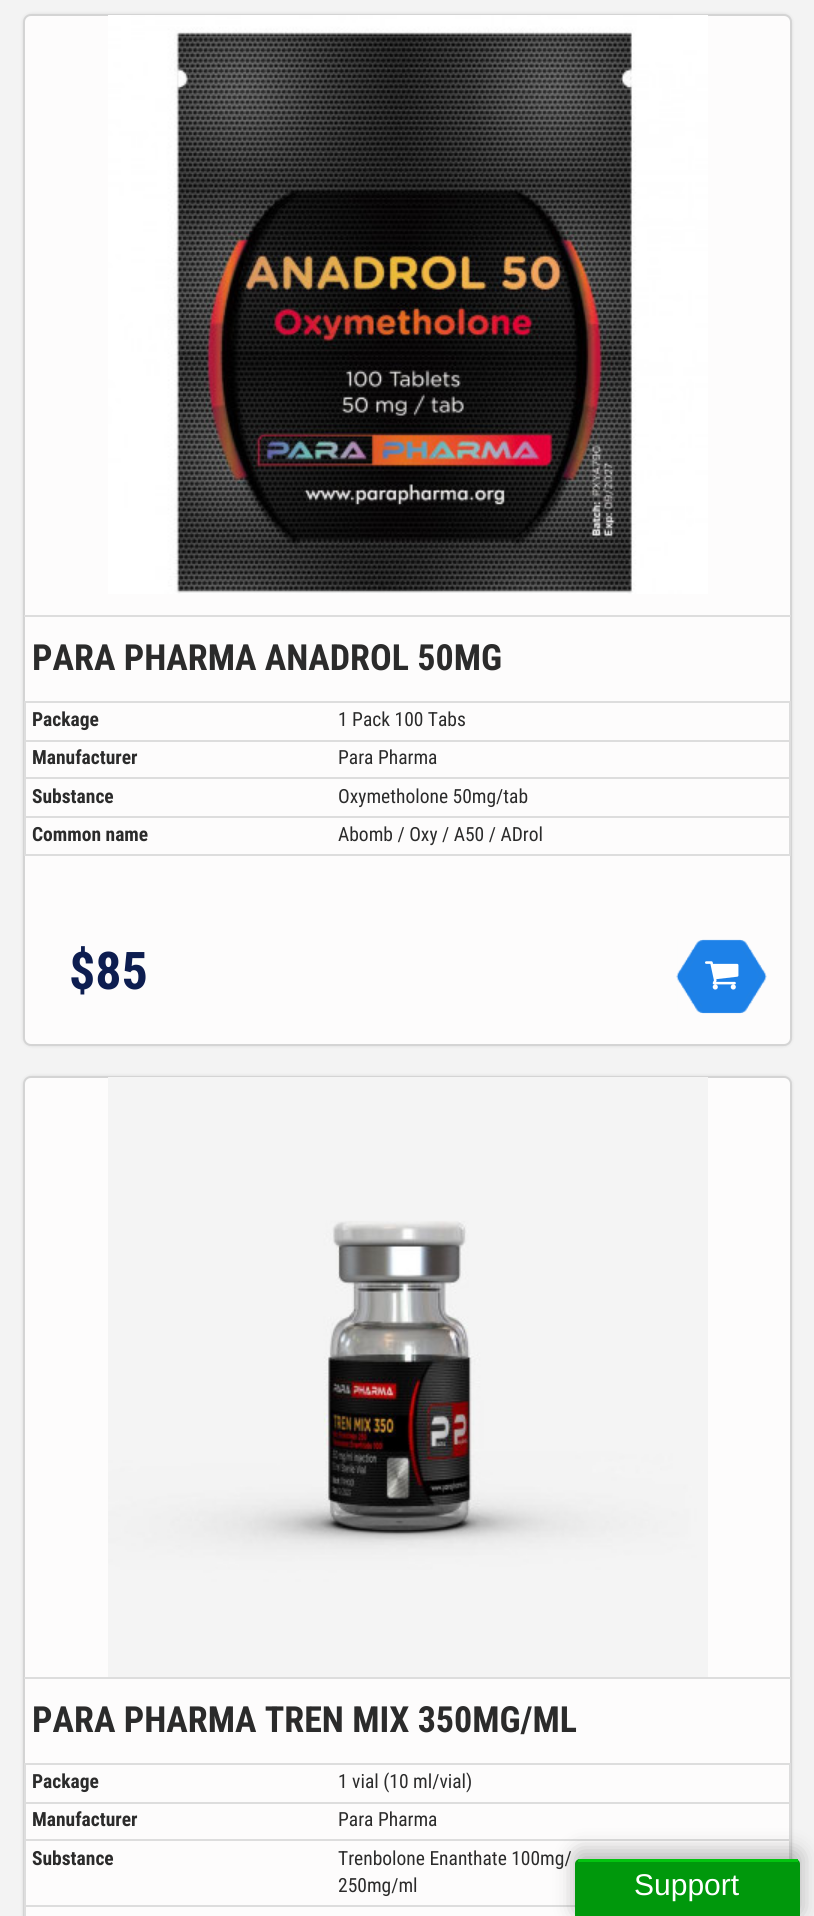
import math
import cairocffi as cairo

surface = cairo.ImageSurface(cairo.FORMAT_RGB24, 814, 1916)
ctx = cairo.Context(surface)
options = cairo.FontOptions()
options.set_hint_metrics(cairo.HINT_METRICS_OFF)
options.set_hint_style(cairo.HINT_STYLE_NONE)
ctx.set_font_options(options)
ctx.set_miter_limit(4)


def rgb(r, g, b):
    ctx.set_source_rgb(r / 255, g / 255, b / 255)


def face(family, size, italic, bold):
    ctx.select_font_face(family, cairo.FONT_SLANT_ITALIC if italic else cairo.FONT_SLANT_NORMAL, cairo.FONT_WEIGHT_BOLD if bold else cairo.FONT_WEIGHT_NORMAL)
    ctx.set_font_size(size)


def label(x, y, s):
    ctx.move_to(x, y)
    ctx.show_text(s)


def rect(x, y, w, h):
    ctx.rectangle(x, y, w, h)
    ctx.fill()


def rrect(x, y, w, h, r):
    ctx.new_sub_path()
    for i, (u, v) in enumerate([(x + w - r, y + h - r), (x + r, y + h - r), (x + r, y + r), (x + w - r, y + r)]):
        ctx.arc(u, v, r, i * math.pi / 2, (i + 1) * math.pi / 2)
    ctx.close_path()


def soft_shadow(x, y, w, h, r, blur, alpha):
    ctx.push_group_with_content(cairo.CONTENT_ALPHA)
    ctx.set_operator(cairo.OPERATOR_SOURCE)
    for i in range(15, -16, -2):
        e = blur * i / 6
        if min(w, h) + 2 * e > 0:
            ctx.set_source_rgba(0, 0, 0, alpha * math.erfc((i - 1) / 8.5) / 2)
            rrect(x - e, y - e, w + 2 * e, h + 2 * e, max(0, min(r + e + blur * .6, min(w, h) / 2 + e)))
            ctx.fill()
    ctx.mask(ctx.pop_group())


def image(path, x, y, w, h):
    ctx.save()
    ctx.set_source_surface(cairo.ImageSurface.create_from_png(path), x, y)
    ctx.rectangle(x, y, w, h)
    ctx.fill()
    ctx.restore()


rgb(243, 243, 243)
ctx.paint()
rgb(0, 0, 0)
soft_shadow(23, 14, 769, 1032, 8, 1.5, 0.1)
rgb(253, 252, 252)
rrect(24, 15, 767, 1030, 7)
ctx.fill_preserve()
rgb(212, 212, 212)
ctx.stroke()
rgb(221, 221, 221)
rect(24, 615, 767, 2)
image('image0.png', 108, 15, 600, 579)
face('Roboto Condensed', 36, 0, 1)
rgb(43, 43, 43)
label(32, 670, 'PARA PHARMA ANADROL 50MG')
rgb(221, 221, 221)
rect(24, 701, 767, 2)
rect(789, 701, 2, 154)
rect(24, 854, 767, 2)
rect(24, 701, 2, 154)
face('Roboto Condensed', 19.5, 0, 1)
rgb(43, 43, 43)
label(32, 726, 'Package')
face('Roboto Condensed', 19.5, 0, 0)
label(338, 726, '1 Pack 100 Tabs')
face('Roboto Condensed', 19.5, 0, 1)
label(32, 764, 'Manufacturer')
rgb(221, 221, 221)
rect(24, 740, 767, 2)
face('Roboto Condensed', 19.5, 0, 0)
rgb(43, 43, 43)
label(338, 764, 'Para Pharma')
face('Roboto Condensed', 19.5, 0, 1)
label(32, 803, 'Substance')
rgb(221, 221, 221)
rect(24, 777, 767, 2)
face('Roboto Condensed', 19.5, 0, 0)
rgb(43, 43, 43)
label(338, 803, 'Oxymetholone 50mg/tab')
face('Roboto Condensed', 19.5, 0, 1)
label(32, 841, 'Common name')
rgb(221, 221, 221)
rect(24, 816, 767, 2)
face('Roboto Condensed', 19.5, 0, 0)
rgb(43, 43, 43)
label(338, 841, 'Abomb / Oxy / A50 / ADrol')
face('Roboto Condensed', 52, 0, 1)
rgb(13, 29, 80)
label(69, 989, '$85')
image('image1.png', 676, 939, 91, 75)
image('image2.png', 705, 961, 34, 29)
rgb(0, 0, 0)
soft_shadow(23, 1076, 769, 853, 8, 1.5, 0.1)
rgb(253, 252, 252)
rrect(24, 1077, 767, 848, 7)
ctx.fill_preserve()
rgb(212, 212, 212)
ctx.stroke()
rgb(221, 221, 221)
rect(24, 1677, 767, 2)
image('image3.png', 108, 1077, 600, 600)
face('Roboto Condensed', 36, 0, 1)
rgb(43, 43, 43)
label(32, 1732, 'PARA PHARMA TREN MIX 350MG/ML')
rgb(221, 221, 221)
rect(24, 1763, 767, 2)
rect(789, 1763, 2, 96)
rect(24, 1763, 2, 153)
face('Roboto Condensed', 19.5, 0, 1)
rgb(43, 43, 43)
label(32, 1788, 'Package')
face('Roboto Condensed', 19.5, 0, 0)
label(338, 1788, '1 vial (10 ml/vial)')
face('Roboto Condensed', 19.5, 0, 1)
label(32, 1826, 'Manufacturer')
rgb(221, 221, 221)
rect(24, 1802, 767, 2)
face('Roboto Condensed', 19.5, 0, 0)
rgb(43, 43, 43)
label(338, 1826, 'Para Pharma')
face('Roboto Condensed', 19.5, 0, 1)
label(32, 1865, 'Substance')
rgb(221, 221, 221)
rect(24, 1839, 767, 2)
face('Roboto Condensed', 19.5, 0, 0)
rgb(43, 43, 43)
label(338, 1865, 'Trenbolone Enanthate 100mg/')
label(338, 1892, '250mg/ml')
rgb(221, 221, 221)
rect(24, 1905, 551, 2)
rgb(50, 50, 50)
soft_shadow(575, 1851, 225, 63, 5, 10.5, 0.34)
rgb(0, 152, 12)
rrect(575, 1859, 225, 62, 5)
ctx.fill()
rgb(3, 196, 16)
rect(578, 1859, 220, 3)
face('Liberation Sans', 30, 0, 0)
rgb(255, 255, 255)
label(634, 1895, 'Support')
surface.write_to_png('render.png')
